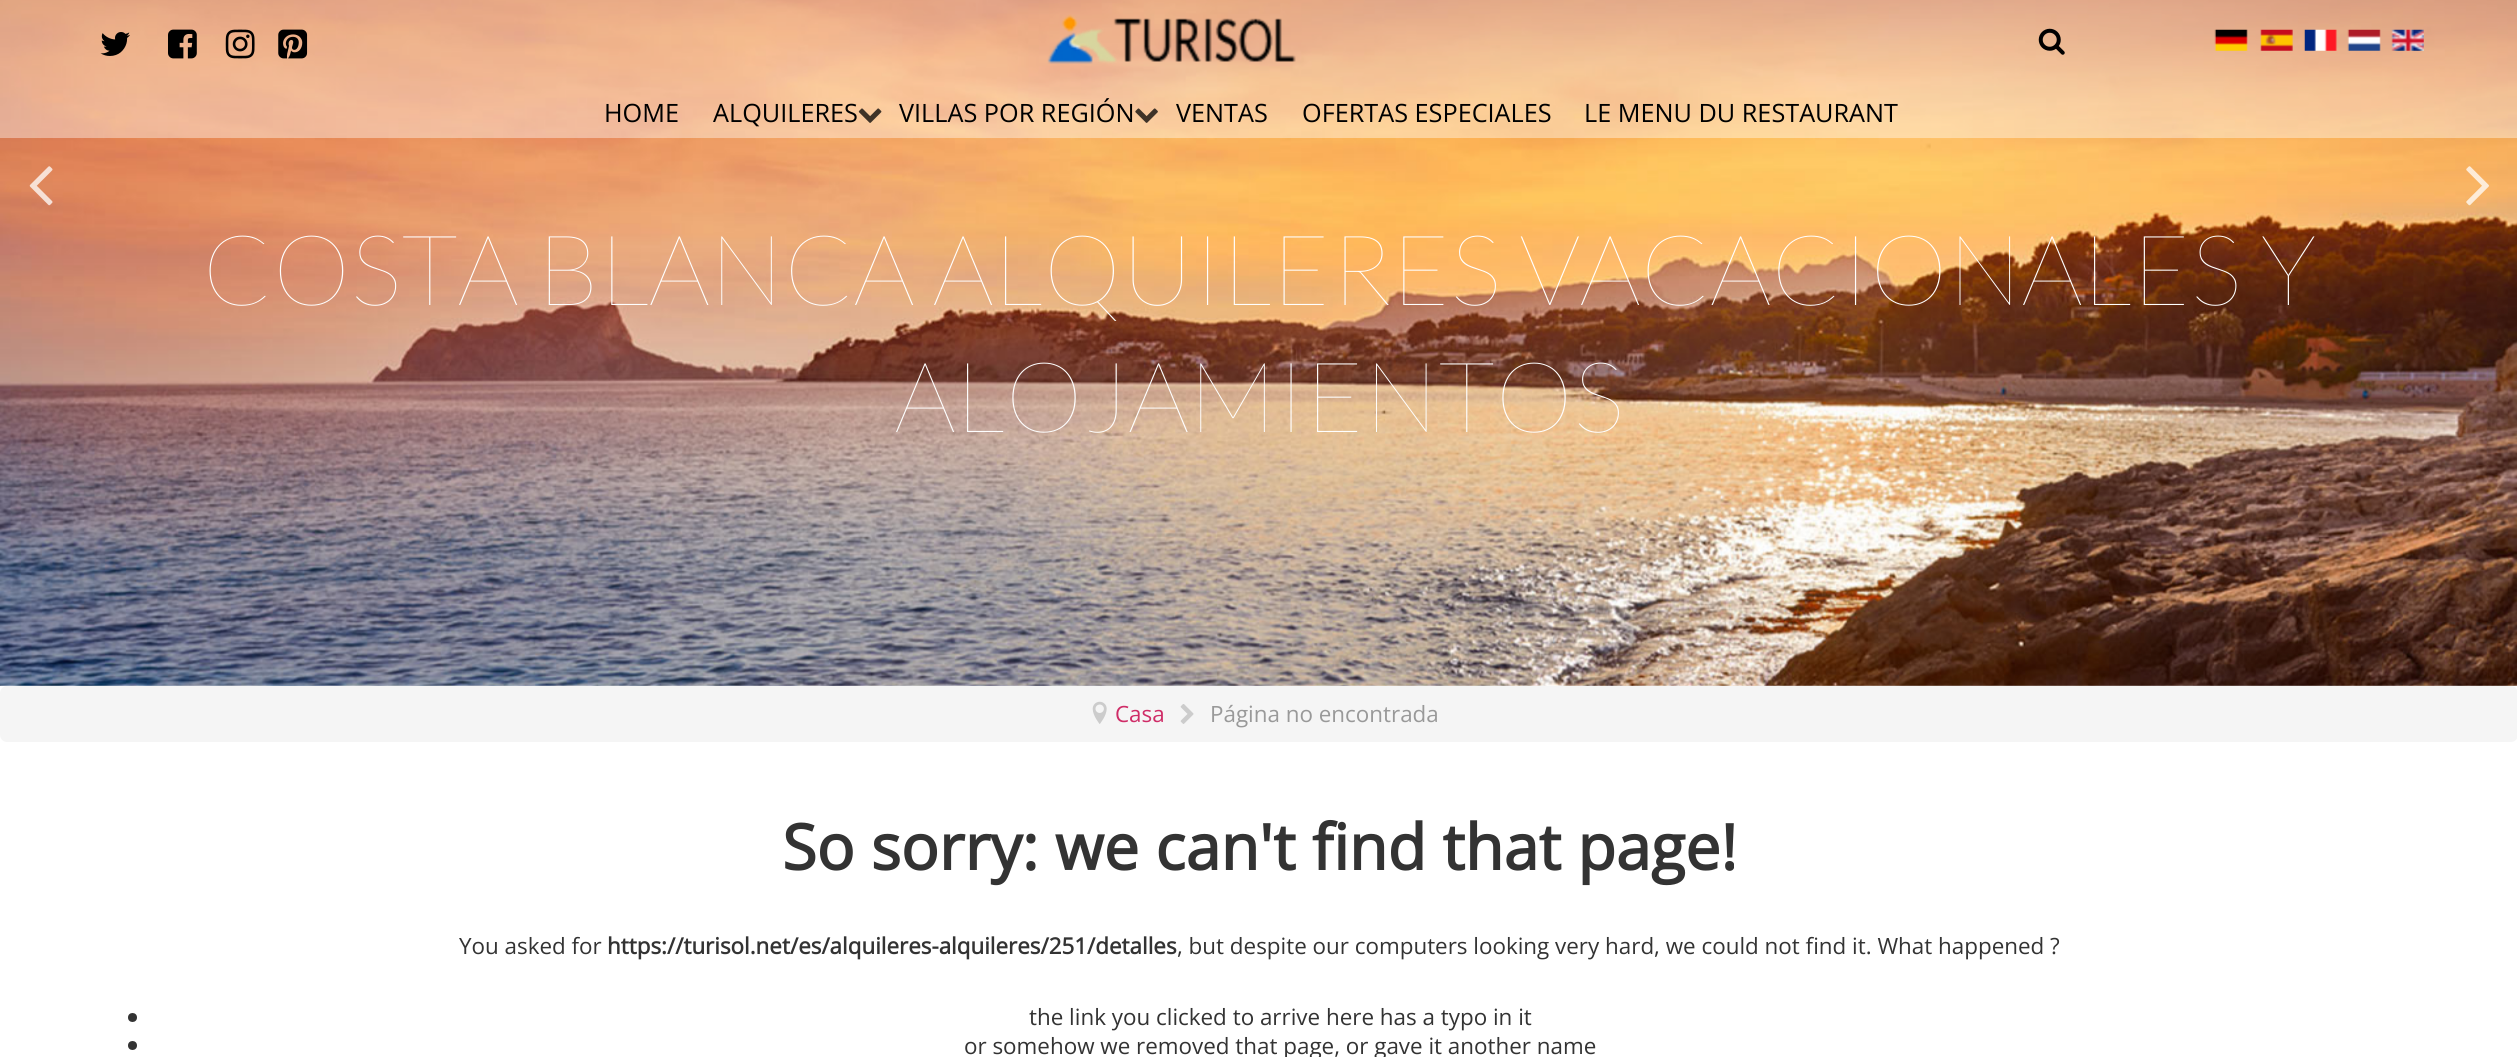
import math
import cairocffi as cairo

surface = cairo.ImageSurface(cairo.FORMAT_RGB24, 2517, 1057)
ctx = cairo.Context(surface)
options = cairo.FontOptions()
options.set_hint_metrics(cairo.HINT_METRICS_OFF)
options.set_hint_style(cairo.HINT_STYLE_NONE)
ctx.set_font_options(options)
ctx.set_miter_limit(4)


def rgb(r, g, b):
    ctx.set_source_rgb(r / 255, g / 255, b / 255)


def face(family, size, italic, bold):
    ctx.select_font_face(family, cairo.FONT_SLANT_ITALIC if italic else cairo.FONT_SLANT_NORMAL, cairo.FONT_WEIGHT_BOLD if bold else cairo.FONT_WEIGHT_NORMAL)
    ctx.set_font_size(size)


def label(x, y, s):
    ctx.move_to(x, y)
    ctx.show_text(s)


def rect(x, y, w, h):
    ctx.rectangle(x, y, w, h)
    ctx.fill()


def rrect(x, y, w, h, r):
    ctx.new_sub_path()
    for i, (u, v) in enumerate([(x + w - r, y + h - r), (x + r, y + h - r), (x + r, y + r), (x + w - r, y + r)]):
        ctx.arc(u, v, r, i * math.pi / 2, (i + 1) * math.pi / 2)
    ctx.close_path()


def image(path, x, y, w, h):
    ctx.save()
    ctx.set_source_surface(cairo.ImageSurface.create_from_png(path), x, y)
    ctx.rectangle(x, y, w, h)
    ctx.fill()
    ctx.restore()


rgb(255, 255, 255)
ctx.paint()
image('image14.png', 0, 685, 1, 1)
image('image13.png', 0, 0, 2517, 686)
ctx.set_source_rgba(1, 1, 1, 0.4)
rect(0, 0, 2517, 138)
image('image0.png', 100, 32, 30, 24)
image('image1.png', 168, 29, 29, 30)
image('image2.png', 225, 29, 30, 30)
image('image3.png', 278, 29, 30, 30)
image('image4.png', 1047, 14, 249, 50)
image('image5.png', 2038, 28, 27, 27)
image('image6.png', 2214, 29, 34, 22)
image('image7.png', 2260, 29, 33, 22)
image('image8.png', 2304, 29, 33, 22)
image('image9.png', 2347, 29, 34, 22)
image('image10.png', 2391, 29, 33, 22)
face('Open Sans', 25.25, 0, 0)
rgb(0, 0, 0)
label(604, 122, 'HOME')
label(713, 122, 'ALQUILERES')
image('image11.png', 858, 108, 24, 15)
label(899, 122, 'VILLAS POR REGIÓN')
image('image12.png', 1135, 108, 23, 15)
label(1176, 122, 'VENTAS')
label(1302, 122, 'OFERTAS ESPECIALES')
label(1584, 122, 'LE MENU DU RESTAURANT')
face('Lato Thin', 98, 0, 0)
rgb(255, 255, 255)
label(202, 305, 'COSTA BLANCA ALQUILERES VACACIONALES Y')
label(895, 432, 'ALOJAMIENTOS')
image('image15.png', 29, 166, 24, 40)
image('image16.png', 2466, 166, 23, 40)
rgb(245, 245, 245)
rrect(0, 686, 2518, 56, 7)
ctx.fill()
image('image17.png', 1092, 701, 15, 23)
face('Open Sans', 22.4, 0, 0)
rgb(207, 44, 103)
label(1115, 722, 'Casa')
image('image18.png', 1180, 704, 14, 20)
rgb(153, 153, 153)
label(1210, 722, 'Página no encontrada')
face('Open Sans', 63, 0, 1)
rgb(51, 51, 51)
label(782, 870, 'So sorry: we can\'t find that page!')
face('Open Sans', 22.4, 0, 0)
label(459, 954, 'You asked for')
face('Open Sans', 22.4, 0, 1)
label(607, 954, 'https://turisol.net/es/alquileres-alquileres/251/detalles')
face('Open Sans', 22.4, 0, 0)
label(1177, 954, ', but despite our computers looking very hard, we could not find it. What happened ?')
ctx.new_path()
ctx.arc(132.5, 1017.5, 4.5, 0, 2 * math.pi)
ctx.fill()
label(1029, 1025, 'the link you clicked to arrive here has a typo in it')
ctx.new_path()
ctx.arc(132.5, 1045.5, 4.5, 0, 2 * math.pi)
ctx.fill()
label(964, 1054, 'or somehow we removed that page, or gave it another name')
surface.write_to_png('render.png')
